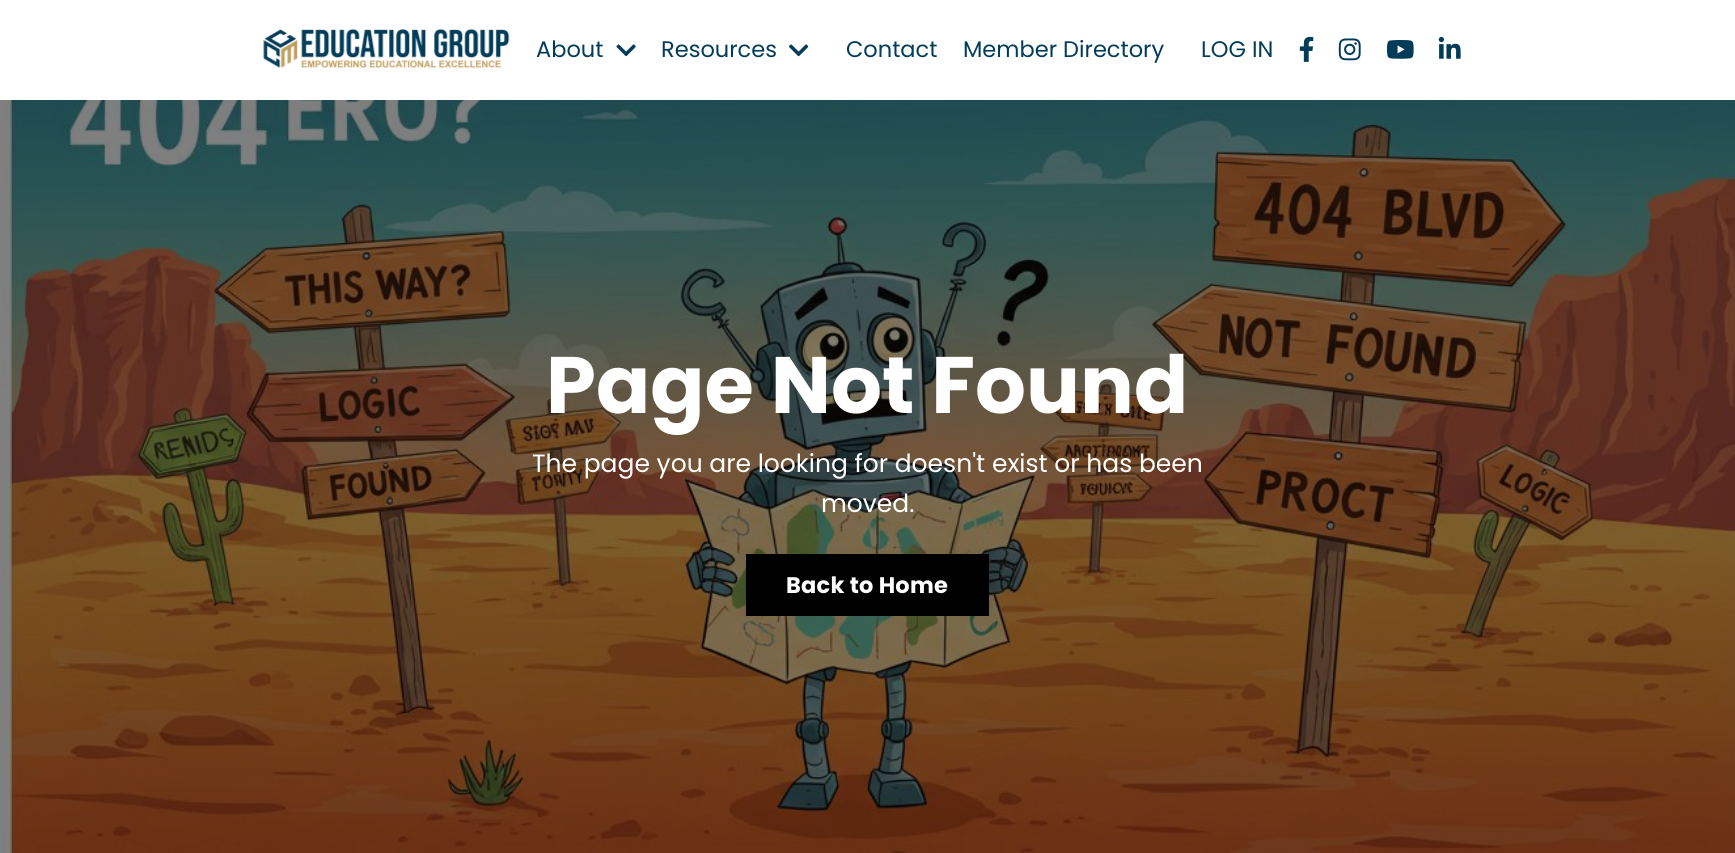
import math
import cairocffi as cairo

surface = cairo.ImageSurface(cairo.FORMAT_RGB24, 1735, 853)
ctx = cairo.Context(surface)
options = cairo.FontOptions()
options.set_hint_metrics(cairo.HINT_METRICS_OFF)
options.set_hint_style(cairo.HINT_STYLE_NONE)
ctx.set_font_options(options)
ctx.set_miter_limit(4)


def rgb(r, g, b):
    ctx.set_source_rgb(r / 255, g / 255, b / 255)


def face(family, size, italic, bold):
    ctx.select_font_face(family, cairo.FONT_SLANT_ITALIC if italic else cairo.FONT_SLANT_NORMAL, cairo.FONT_WEIGHT_BOLD if bold else cairo.FONT_WEIGHT_NORMAL)
    ctx.set_font_size(size)


def label(x, y, s):
    ctx.move_to(x, y)
    ctx.show_text(s)


def tracked(x, y, s, letter, word):
    ctx.move_to(x, y)
    for ch in s:
        ctx.show_text(ch)
        ctx.rel_move_to(letter + word * (ch == ' '), 0)


def rect(x, y, w, h):
    ctx.rectangle(x, y, w, h)
    ctx.fill()


def rrect(x, y, w, h, r):
    ctx.new_sub_path()
    for i, (u, v) in enumerate([(x + w - r, y + h - r), (x + r, y + h - r), (x + r, y + r), (x + w - r, y + r)]):
        ctx.arc(u, v, r, i * math.pi / 2, (i + 1) * math.pi / 2)
    ctx.close_path()


def soft_shadow(x, y, w, h, r, blur, alpha):
    ctx.push_group_with_content(cairo.CONTENT_ALPHA)
    ctx.set_operator(cairo.OPERATOR_SOURCE)
    for i in range(15, -16, -2):
        e = blur * i / 6
        if min(w, h) + 2 * e > 0:
            ctx.set_source_rgba(0, 0, 0, alpha * math.erfc((i - 1) / 8.5) / 2)
            rrect(x - e, y - e, w + 2 * e, h + 2 * e, max(0, min(r + e + blur * .6, min(w, h) / 2 + e)))
            ctx.fill()
    ctx.mask(ctx.pop_group())


def image(path, x, y, w, h):
    ctx.save()
    ctx.set_source_surface(cairo.ImageSurface.create_from_png(path), x, y)
    ctx.rectangle(x, y, w, h)
    ctx.fill()
    ctx.restore()


rgb(255, 255, 255)
ctx.paint()
image('image0.png', 263, 29, 247, 40)
face('Poppins', 22.5, 0, 0)
rgb(2, 60, 89)
label(536, 57, 'About')
image('image1.png', 616, 44, 20, 13)
label(661, 57, 'Resources')
image('image2.png', 789, 44, 20, 13)
label(846, 57, 'Contact')
label(963, 57, 'Member Directory')
label(1201, 57, 'LOG IN')
image('image3.png', 1299, 36, 15, 26)
image('image4.png', 1338, 38, 23, 23)
image('image5.png', 1387, 40, 27, 19)
image('image6.png', 1438, 36, 23, 23)
image('image7.png', 0, 100, 1735, 753)
face('Poppins', 80, 0, 1)
rgb(255, 255, 255)
label(546, 413, 'Page Not Found')
face('Poppins', 25, 0, 0)
label(532, 472, 'The page you are looking for doesn\'t exist or has been')
label(821, 512, 'moved.')
ctx.save()
rrect(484, 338, 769, 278, 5)
ctx.clip()
rgb(0, 0, 0)
soft_shadow(746, 556, 243, 63, 0, 6, 0.1)
ctx.restore()
rgb(0, 0, 0)
rect(746, 554, 243, 62)
face('Poppins', 22.5, 0, 1)
rgb(255, 255, 255)
tracked(786, 593, 'Back to Home', 0.25, 0)
surface.write_to_png('render.png')
